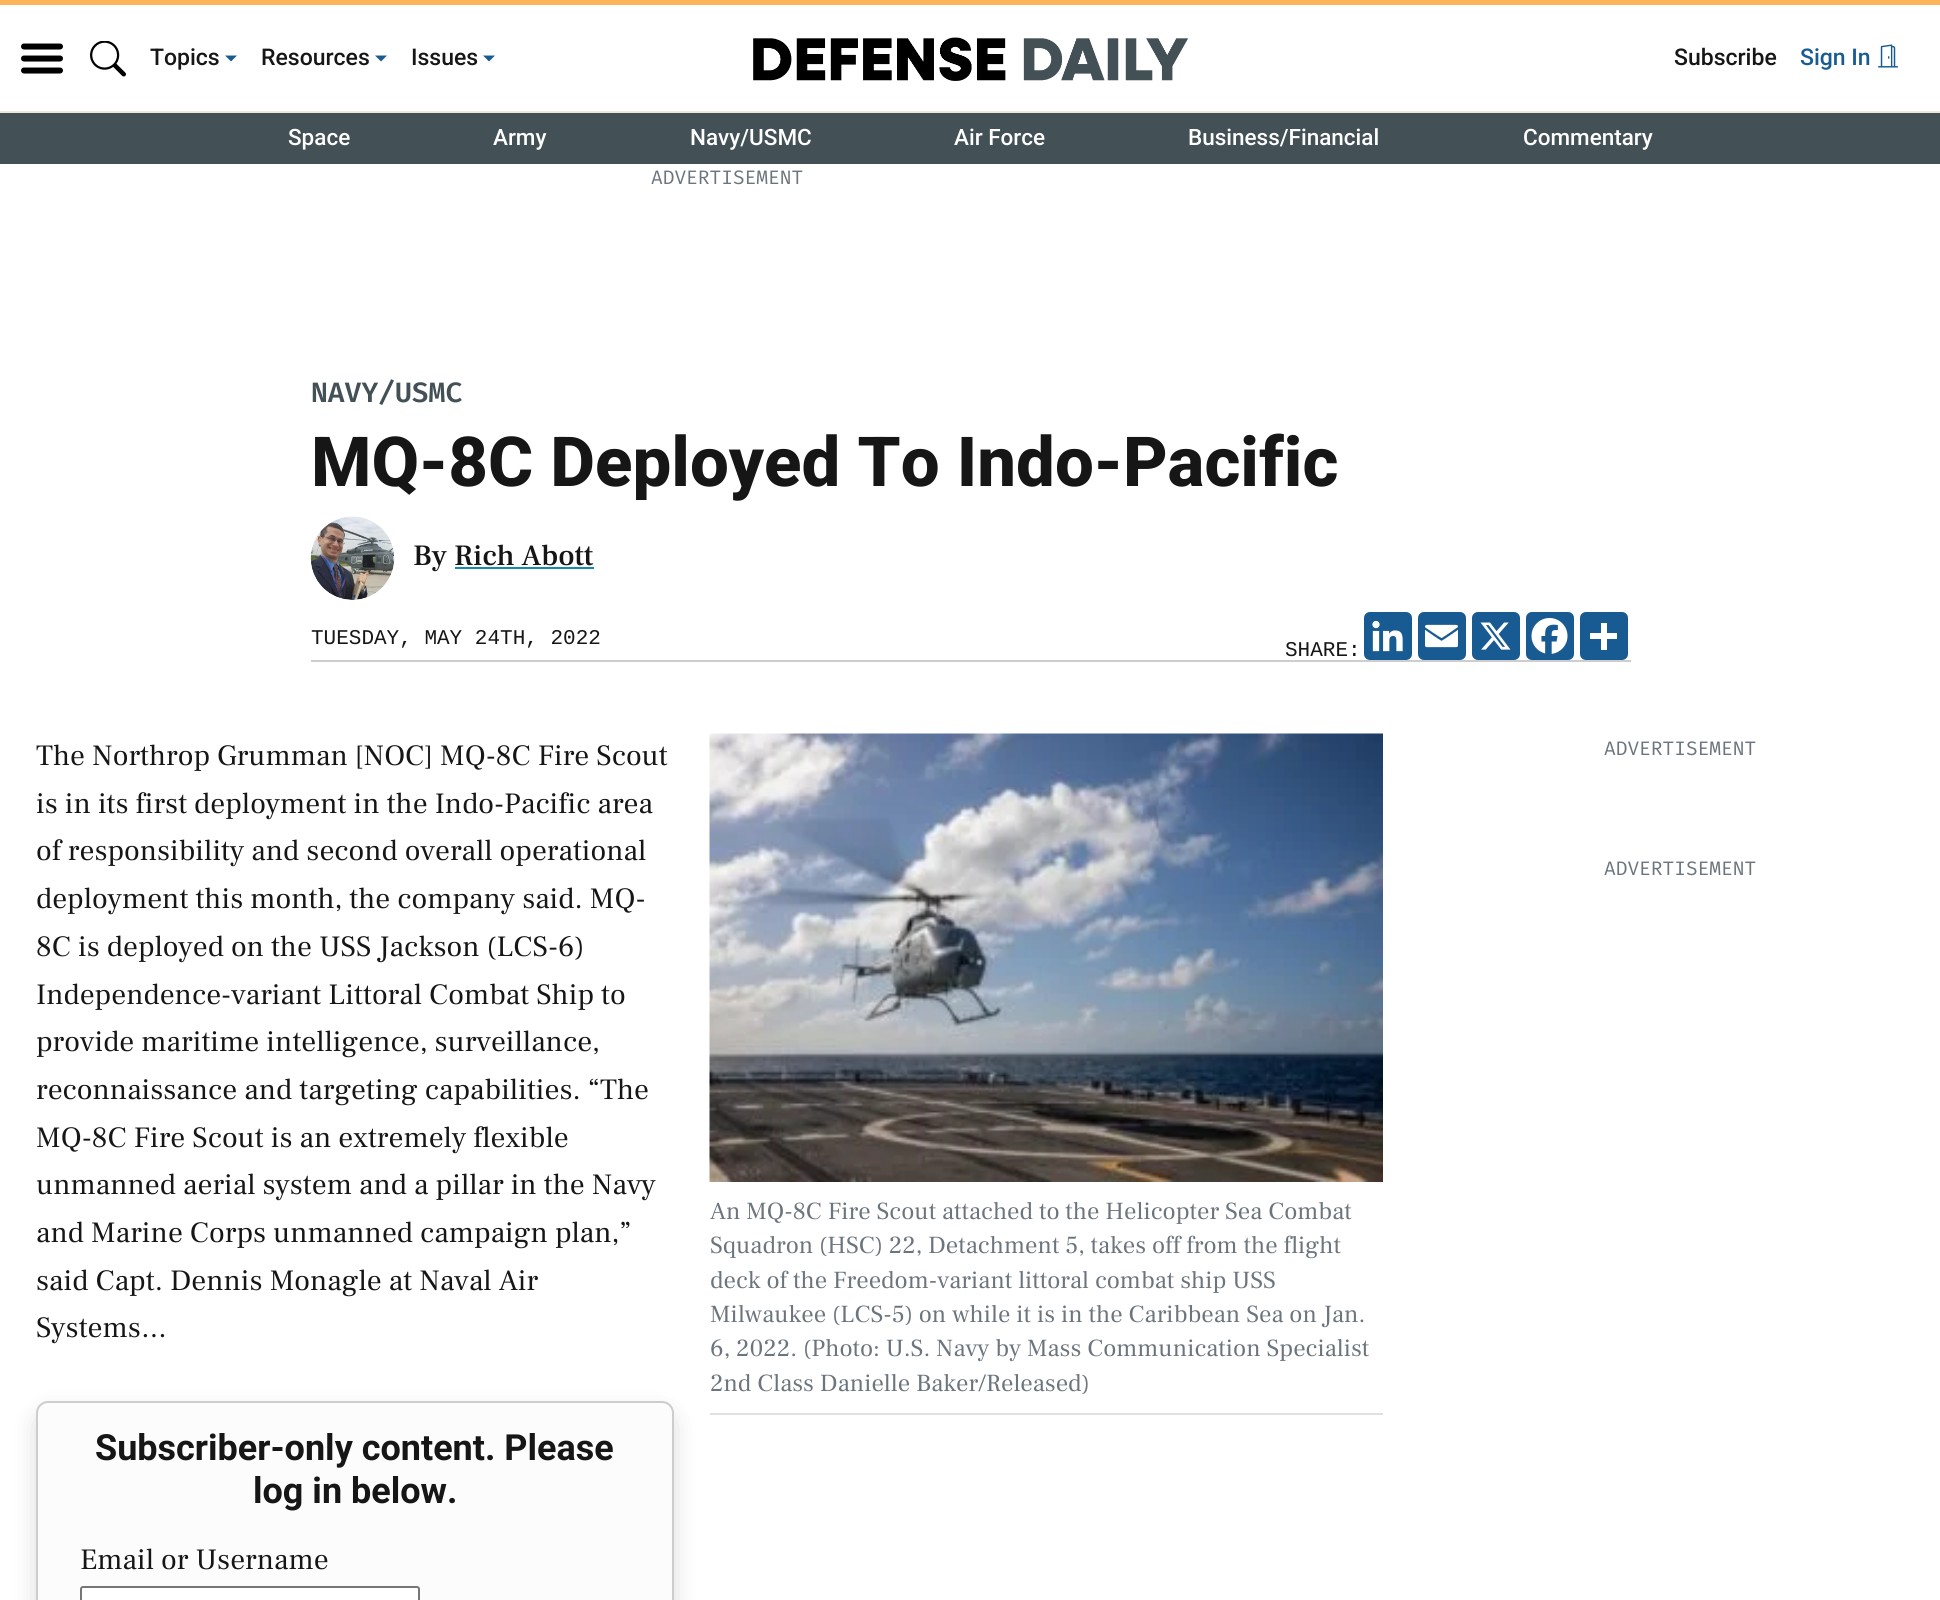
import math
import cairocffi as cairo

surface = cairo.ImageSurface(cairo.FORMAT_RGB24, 1940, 1600)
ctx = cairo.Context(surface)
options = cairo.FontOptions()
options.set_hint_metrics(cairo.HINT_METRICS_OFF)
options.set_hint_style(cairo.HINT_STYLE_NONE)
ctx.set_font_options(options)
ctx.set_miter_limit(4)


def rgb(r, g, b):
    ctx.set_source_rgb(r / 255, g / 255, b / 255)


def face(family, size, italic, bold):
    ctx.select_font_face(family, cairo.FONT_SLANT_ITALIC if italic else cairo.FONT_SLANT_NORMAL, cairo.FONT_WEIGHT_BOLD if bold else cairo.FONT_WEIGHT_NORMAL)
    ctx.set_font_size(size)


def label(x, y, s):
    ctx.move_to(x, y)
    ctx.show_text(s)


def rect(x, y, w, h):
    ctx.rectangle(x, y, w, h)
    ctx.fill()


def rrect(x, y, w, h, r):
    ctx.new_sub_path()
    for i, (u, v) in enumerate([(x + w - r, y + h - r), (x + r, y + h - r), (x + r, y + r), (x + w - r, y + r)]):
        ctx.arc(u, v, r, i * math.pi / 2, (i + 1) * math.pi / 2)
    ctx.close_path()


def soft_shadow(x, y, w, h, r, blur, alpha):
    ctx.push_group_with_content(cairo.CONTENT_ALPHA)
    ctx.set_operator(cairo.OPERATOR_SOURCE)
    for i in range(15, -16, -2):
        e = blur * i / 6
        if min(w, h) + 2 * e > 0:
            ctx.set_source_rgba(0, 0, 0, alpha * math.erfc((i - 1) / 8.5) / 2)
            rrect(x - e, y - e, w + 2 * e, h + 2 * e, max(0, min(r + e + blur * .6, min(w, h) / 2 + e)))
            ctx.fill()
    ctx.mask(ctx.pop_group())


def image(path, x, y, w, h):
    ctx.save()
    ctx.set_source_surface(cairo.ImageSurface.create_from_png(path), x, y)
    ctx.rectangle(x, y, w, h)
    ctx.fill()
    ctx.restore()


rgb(255, 255, 255)
ctx.paint()
rgb(255, 180, 90)
rect(0, 0, 1940, 5)
rgb(237, 230, 223)
rect(0, 111, 1940, 2)
image('image0.png', 21, 43, 42, 31)
image('image1.png', 90, 41, 36, 36)
face('Roboto Medium', 23, 0, 0)
rgb(23, 22, 22)
label(150, 65, 'Topics')
rgb(24, 91, 146)
ctx.new_path()
ctx.move_to(225, 55.5)
ctx.line_to(237, 55.5)
ctx.line_to(231, 61.5)
ctx.close_path()
ctx.fill()
rgb(23, 22, 22)
label(261, 65, 'Resources')
rgb(24, 91, 146)
ctx.new_path()
ctx.move_to(375, 55.5)
ctx.line_to(387, 55.5)
ctx.line_to(381, 61.5)
ctx.close_path()
ctx.fill()
rgb(23, 22, 22)
label(411, 65, 'Issues')
rgb(24, 91, 146)
ctx.new_path()
ctx.move_to(483, 55.5)
ctx.line_to(495, 55.5)
ctx.line_to(489, 61.5)
ctx.close_path()
ctx.fill()
image('image2.png', 753, 37, 435, 44)
rgb(23, 22, 22)
label(1674, 65, 'Subscribe')
rgb(24, 91, 146)
label(1800, 65, 'Sign In')
image('image3.png', 1878, 44, 20, 24)
rgb(67, 80, 86)
rect(0, 113, 1940, 51)
face('Roboto Medium', 22.5, 0, 0)
rgb(255, 254, 254)
label(288, 145, 'Space')
label(493, 145, 'Army')
label(690, 145, 'Navy/USMC')
label(954, 145, 'Air Force')
label(1188, 145, 'Business/Financial')
label(1523, 145, 'Commentary')
face('Fira Code', 19.5, 0, 0)
rgb(108, 117, 125)
label(651, 184, 'ADVERTISEMENT')
rgb(206, 204, 204)
rect(311, 660, 1320, 2)
face('Fira Code SemiBold', 28, 0, 0)
rgb(67, 80, 86)
label(311, 402, 'NAVY/USMC')
face('Roboto ExtraBold', 69, 0, 0)
rgb(23, 22, 22)
label(311, 486, 'MQ-8C Deployed To Indo-Pacific')
image('image4.png', 310, 516, 85, 84)
face('Frank Ruhl Libre Medium', 29.5, 0, 0)
label(413, 565, 'By Rich Abott')
rgb(22, 135, 179)
rect(455, 567, 139, 2)
face('Liberation Mono', 21, 0, 0)
rgb(23, 22, 22)
label(311, 644, 'TUESDAY, MAY 24TH, 2022')
label(1285, 656, 'SHARE:')
rgb(24, 91, 146)
rrect(1364, 612, 48, 48, 6)
ctx.fill()
image('image5.png', 1372, 620, 31, 32)
rrect(1418, 612, 48, 48, 6)
ctx.fill()
image('image6.png', 1425, 624, 33, 24)
rrect(1472, 612, 48, 48, 6)
ctx.fill()
image('image7.png', 1480, 622, 31, 28)
rrect(1526, 612, 48, 48, 6)
ctx.fill()
image('image8.png', 1531, 618, 37, 36)
rrect(1580, 612, 48, 48, 6)
ctx.fill()
rgb(255, 255, 255)
rect(1601, 623, 6, 27)
rect(1590, 633, 27, 6)
face('Frank Ruhl Libre', 29.5, 0, 0)
rgb(23, 22, 22)
label(36, 765, 'The Northrop Grumman [NOC] MQ-8C Fire Scout')
label(36, 813, 'is in its first deployment in the Indo-Pacific area')
label(36, 860, 'of responsibility and second overall operational')
label(36, 908, 'deployment this month, the company said. MQ-')
label(36, 956, '8C is deployed on the USS Jackson (LCS-6)')
label(36, 1004, 'Independence-variant Littoral Combat Ship to')
label(36, 1051, 'provide maritime intelligence, surveillance,')
label(36, 1099, 'reconnaissance and targeting capabilities. “The')
label(36, 1147, 'MQ-8C Fire Scout is an extremely flexible')
label(36, 1194, 'unmanned aerial system and a pillar in the Navy')
label(36, 1242, 'and Marine Corps unmanned campaign plan,”')
label(36, 1290, 'said Capt. Dennis Monagle at Naval Air')
label(36, 1337, 'Systems…')
image('image9.png', 709, 733, 674, 449)
rgb(22, 24, 29)
soft_shadow(36, 1413, 638, 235, 12, 12, 0.15)
rgb(222, 226, 230)
rect(710, 1413, 673, 2)
face('Frank Ruhl Libre', 24.6, 0, 0)
rgb(108, 117, 125)
label(710, 1219, 'An MQ-8C Fire Scout attached to the Helicopter Sea Combat')
label(710, 1253, 'Squadron (HSC) 22, Detachment 5, takes off from the flight')
label(710, 1288, 'deck of the Freedom-variant littoral combat ship USS')
label(710, 1322, 'Milwaukee (LCS-5) on while it is in the Caribbean Sea on Jan.')
label(710, 1356, '6, 2022. (Photo: U.S. Navy by Mass Communication Specialist')
label(710, 1391, '2nd Class Danielle Baker/Released)')
rgb(252, 252, 252)
rrect(37, 1402, 636, 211, 11)
ctx.fill_preserve()
rgb(206, 204, 204)
ctx.stroke()
face('Roboto', 36, 0, 1)
rgb(23, 22, 22)
label(95, 1460, 'Subscriber-only content. Please')
label(253, 1503, 'log in below.')
face('Frank Ruhl Libre', 29.5, 0, 0)
label(80, 1569, 'Email or Username')
rgb(255, 255, 255)
rrect(81, 1587, 338, 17, 2)
ctx.fill_preserve()
rgb(118, 118, 118)
ctx.stroke()
face('Fira Code', 19.5, 0, 0)
rgb(108, 117, 125)
label(1604, 755, 'ADVERTISEMENT')
label(1604, 875, 'ADVERTISEMENT')
surface.write_to_png('render.png')
